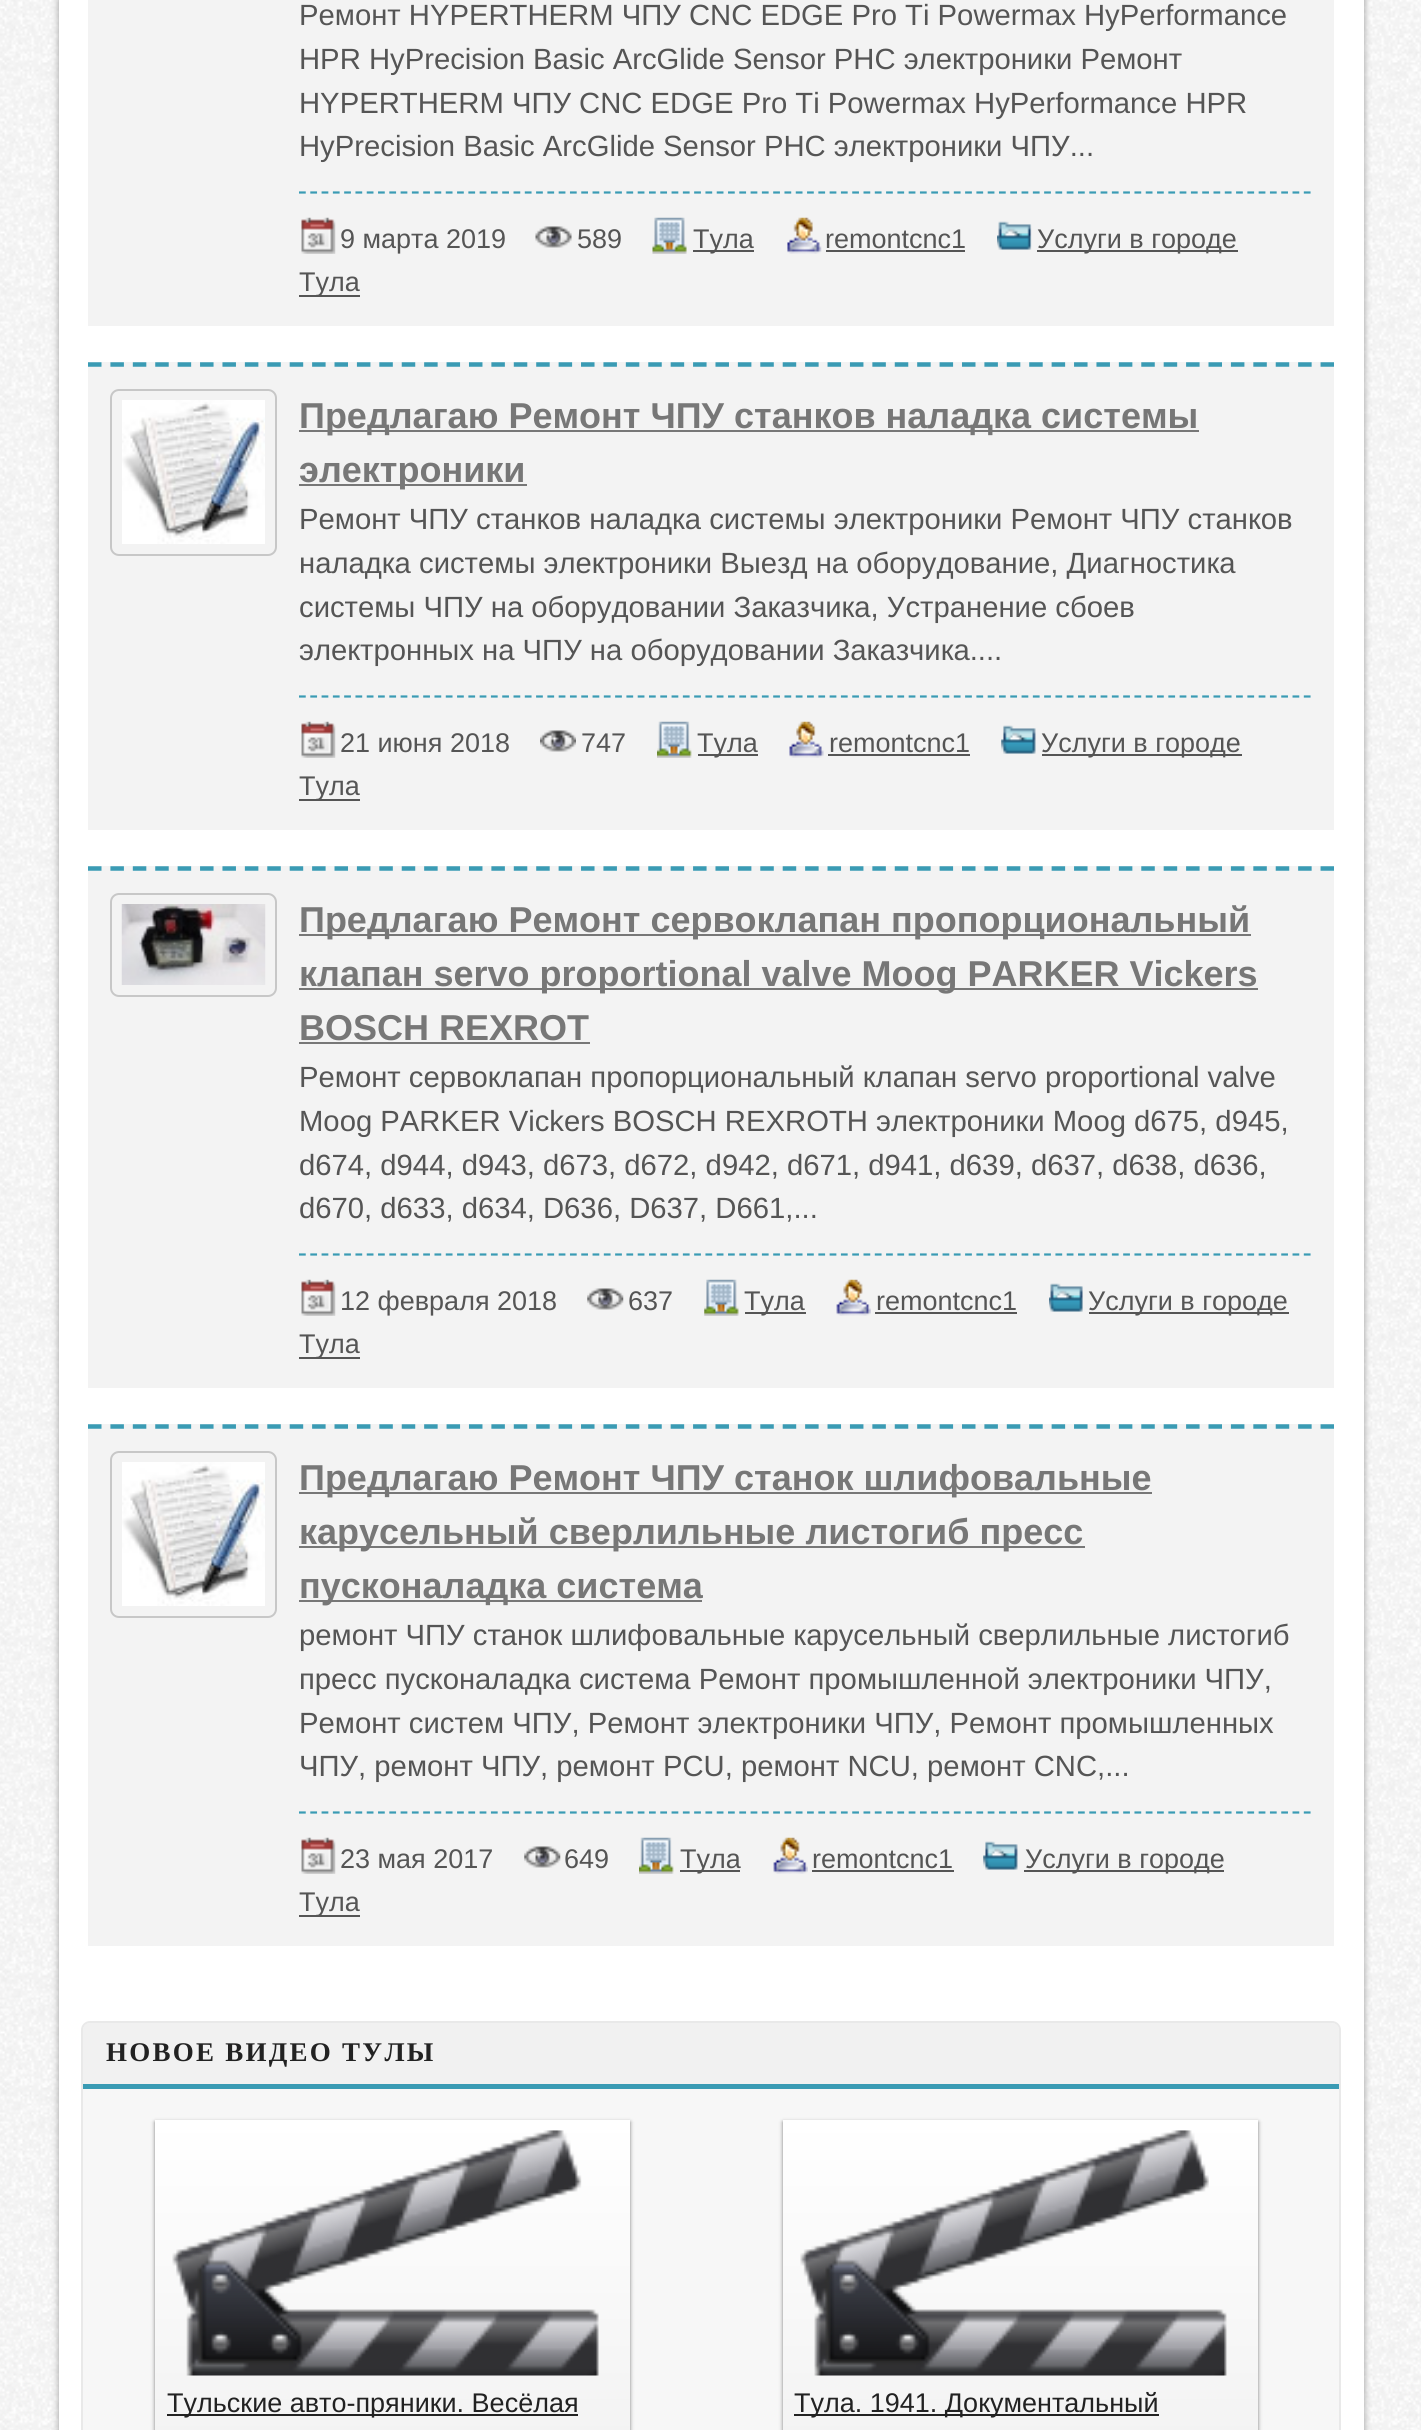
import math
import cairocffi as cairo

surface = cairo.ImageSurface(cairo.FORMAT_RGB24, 1421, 2430)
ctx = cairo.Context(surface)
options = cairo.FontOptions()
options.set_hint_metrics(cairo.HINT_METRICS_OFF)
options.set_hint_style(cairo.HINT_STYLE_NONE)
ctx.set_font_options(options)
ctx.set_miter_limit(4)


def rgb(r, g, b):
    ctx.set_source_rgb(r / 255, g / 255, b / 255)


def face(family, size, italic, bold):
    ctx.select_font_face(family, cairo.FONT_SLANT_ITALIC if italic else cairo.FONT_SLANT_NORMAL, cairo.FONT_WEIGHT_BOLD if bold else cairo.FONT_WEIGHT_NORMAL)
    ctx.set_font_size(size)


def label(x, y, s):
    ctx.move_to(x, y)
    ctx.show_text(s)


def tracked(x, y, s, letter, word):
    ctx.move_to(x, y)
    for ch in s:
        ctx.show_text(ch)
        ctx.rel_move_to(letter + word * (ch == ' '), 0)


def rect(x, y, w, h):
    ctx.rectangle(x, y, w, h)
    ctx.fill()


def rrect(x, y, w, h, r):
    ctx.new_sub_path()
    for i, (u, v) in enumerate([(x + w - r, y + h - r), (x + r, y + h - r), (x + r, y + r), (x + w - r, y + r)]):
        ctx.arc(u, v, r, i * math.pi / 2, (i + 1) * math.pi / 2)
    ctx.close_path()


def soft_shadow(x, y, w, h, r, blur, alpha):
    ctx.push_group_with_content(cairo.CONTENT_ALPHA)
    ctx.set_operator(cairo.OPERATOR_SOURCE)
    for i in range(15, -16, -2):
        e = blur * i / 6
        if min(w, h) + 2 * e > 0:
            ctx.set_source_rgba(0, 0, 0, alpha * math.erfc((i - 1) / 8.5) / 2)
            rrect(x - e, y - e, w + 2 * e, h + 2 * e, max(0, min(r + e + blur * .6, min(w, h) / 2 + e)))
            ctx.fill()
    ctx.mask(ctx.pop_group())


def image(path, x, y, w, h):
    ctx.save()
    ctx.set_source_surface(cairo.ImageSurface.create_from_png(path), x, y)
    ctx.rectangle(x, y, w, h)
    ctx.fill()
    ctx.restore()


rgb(255, 255, 255)
ctx.paint()
image('image0.png', 0, 0, 1421, 2430)
rgb(153, 153, 153)
soft_shadow(59, -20, 1305, 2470, 9, 3.5, 1)
rgb(255, 255, 255)
rect(59, 0, 1305, 2430)
rgb(243, 243, 243)
rect(88, 0, 1246, 326)
face('Liberation Sans', 29.25, 0, 0)
rgb(85, 85, 85)
label(299, 25, 'Ремонт HYPERTHERM ЧПУ CNC EDGE Pro Ti Powermax HyPerformance')
label(299, 69, 'HPR HyPrecision Basic ArcGlide Sensor PHC электроники Ремонт')
label(299, 113, 'HYPERTHERM ЧПУ CNC EDGE Pro Ti Powermax HyPerformance HPR')
label(299, 156, 'HyPrecision Basic ArcGlide Sensor PHC электроники ЧПУ...')
ctx.new_path()
ctx.move_to(299, 192.5)
ctx.line_to(1312, 192.5)
rgb(58, 155, 180)
ctx.set_line_width(2.2)
ctx.set_dash([6.75, 4.54])
ctx.stroke()
image('image1.png', 301, 217, 35, 37)
face('Liberation Sans', 27, 0, 0)
rgb(85, 85, 85)
label(340, 248, '9 марта 2019')
image('image2.png', 535, 226, 37, 22)
label(577, 248, '589')
image('image3.png', 652, 217, 35, 37)
rect(693, 250, 61, 2)
label(693, 248, 'Тула')
image('image4.png', 787, 217, 35, 37)
label(825, 248, 'remontcnc1')
rect(826, 250, 139, 2)
image('image5.png', 997, 221, 35, 29)
rect(1037, 250, 201, 2)
label(1037, 248, 'Услуги в городе')
rect(299, 295, 61, 2)
label(299, 291, 'Тула')
rgb(243, 243, 243)
rect(88, 362, 1246, 468)
ctx.new_path()
ctx.move_to(88, 364.5)
ctx.line_to(1334, 364.5)
rgb(58, 155, 180)
ctx.set_line_width(4.5)
ctx.set_dash([13.5, 8.91])
ctx.stroke()
rrect(111, 390, 165, 165, 8)
rgb(199, 199, 199)
ctx.set_line_width(2)
ctx.set_dash([])
ctx.stroke()
image('image6.png', 122, 400, 143, 144)
rgb(119, 119, 119)
rect(299, 430, 900, 2)
face('Liberation Sans', 36, 0, 1)
label(299, 428, 'Предлагаю Ремонт ЧПУ станков наладка системы')
rect(299, 484, 228, 2)
label(299, 482, 'электроники')
face('Liberation Sans', 29.25, 0, 0)
rgb(85, 85, 85)
label(299, 529, 'Ремонт ЧПУ станков наладка системы электроники Ремонт ЧПУ станков')
label(299, 573, 'наладка системы электроники Выезд на оборудование, Диагностика')
label(299, 617, 'системы ЧПУ на оборудовании Заказчика, Устранение сбоев')
label(299, 660, 'электронных на ЧПУ на оборудовании Заказчика....')
ctx.new_path()
ctx.move_to(299, 696.5)
ctx.line_to(1312, 696.5)
rgb(58, 155, 180)
ctx.set_line_width(2.2)
ctx.set_dash([6.75, 4.54])
ctx.stroke()
image('image7.png', 301, 721, 35, 37)
face('Liberation Sans', 27, 0, 0)
rgb(85, 85, 85)
label(340, 752, '21 июня 2018')
image('image8.png', 540, 730, 36, 22)
label(581, 752, '747')
image('image9.png', 657, 721, 35, 37)
rect(698, 754, 60, 2)
label(697, 752, 'Тула')
image('image10.png', 789, 721, 35, 37)
label(829, 752, 'remontcnc1')
rect(828, 754, 142, 2)
image('image11.png', 1001, 725, 35, 29)
rect(1042, 754, 200, 2)
label(1041, 752, 'Услуги в городе')
rect(299, 799, 61, 2)
label(299, 795, 'Тула')
rgb(243, 243, 243)
rect(88, 866, 1246, 522)
ctx.new_path()
ctx.move_to(88, 868.5)
ctx.line_to(1334, 868.5)
rgb(58, 155, 180)
ctx.set_line_width(4.5)
ctx.set_dash([13.5, 8.91])
ctx.stroke()
rrect(111, 894, 165, 102, 8)
rgb(199, 199, 199)
ctx.set_line_width(2)
ctx.set_dash([])
ctx.stroke()
image('image12.png', 121, 904, 145, 81)
rgb(119, 119, 119)
rect(299, 934, 952, 2)
face('Liberation Sans', 36, 0, 1)
label(299, 932, 'Предлагаю Ремонт сервоклапан пропорциональный')
rect(299, 988, 959, 2)
label(299, 986, 'клапан servo proportional valve Moog PARKER Vickers')
label(299, 1040, 'BOSCH REXROT')
rect(299, 1042, 291, 2)
face('Liberation Sans', 29.25, 0, 0)
rgb(85, 85, 85)
label(299, 1087, 'Ремонт сервоклапан пропорциональный клапан servo proportional valve')
label(299, 1131, 'Moog PARKER Vickers BOSCH REXROTH электроники Moog d675, d945,')
label(299, 1175, 'd674, d944, d943, d673, d672, d942, d671, d941, d639, d637, d638, d636,')
label(299, 1218, 'd670, d633, d634, D636, D637, D661,...')
ctx.new_path()
ctx.move_to(299, 1254.5)
ctx.line_to(1312, 1254.5)
rgb(58, 155, 180)
ctx.set_line_width(2.2)
ctx.set_dash([6.75, 4.54])
ctx.stroke()
image('image1.png', 301, 1279, 35, 37)
face('Liberation Sans', 27, 0, 0)
rgb(85, 85, 85)
label(340, 1310, '12 февраля 2018')
image('image13.png', 587, 1288, 37, 22)
label(628, 1310, '637')
image('image14.png', 704, 1279, 35, 37)
rect(745, 1312, 61, 2)
label(744, 1310, 'Тула')
image('image15.png', 836, 1279, 35, 37)
label(876, 1310, 'remontcnc1')
rect(875, 1312, 142, 2)
image('image16.png', 1049, 1283, 34, 29)
rect(1089, 1312, 200, 2)
label(1088, 1310, 'Услуги в городе')
rect(299, 1357, 61, 2)
label(299, 1353, 'Тула')
rgb(243, 243, 243)
rect(88, 1424, 1246, 522)
ctx.new_path()
ctx.move_to(88, 1426.5)
ctx.line_to(1334, 1426.5)
rgb(58, 155, 180)
ctx.set_line_width(4.5)
ctx.set_dash([13.5, 8.91])
ctx.stroke()
rrect(111, 1452, 165, 165, 8)
rgb(199, 199, 199)
ctx.set_line_width(2)
ctx.set_dash([])
ctx.stroke()
image('image6.png', 122, 1462, 143, 144)
rgb(119, 119, 119)
rect(299, 1492, 853, 2)
face('Liberation Sans', 36, 0, 1)
label(299, 1490, 'Предлагаю Ремонт ЧПУ станок шлифовальные')
rect(299, 1546, 786, 2)
label(299, 1544, 'карусельный сверлильные листогиб пресс')
rect(299, 1600, 403, 2)
label(299, 1598, 'пусконаладка система')
face('Liberation Sans', 29.25, 0, 0)
rgb(85, 85, 85)
label(299, 1645, 'ремонт ЧПУ станок шлифовальные карусельный сверлильные листогиб')
label(299, 1689, 'пресс пусконаладка система Ремонт промышленной электроники ЧПУ,')
label(299, 1733, 'Ремонт систем ЧПУ, Ремонт электроники ЧПУ, Ремонт промышленных')
label(299, 1776, 'ЧПУ, ремонт ЧПУ, ремонт PCU, ремонт NCU, ремонт CNC,...')
ctx.new_path()
ctx.move_to(299, 1812.5)
ctx.line_to(1312, 1812.5)
rgb(58, 155, 180)
ctx.set_line_width(2.2)
ctx.set_dash([6.75, 4.54])
ctx.stroke()
image('image1.png', 301, 1837, 35, 37)
face('Liberation Sans', 27, 0, 0)
rgb(85, 85, 85)
label(340, 1868, '23 мая 2017')
image('image17.png', 524, 1846, 37, 22)
label(564, 1868, '649')
image('image18.png', 639, 1837, 35, 37)
rect(680, 1870, 60, 2)
label(680, 1868, 'Тула')
image('image19.png', 773, 1837, 35, 37)
label(812, 1868, 'remontcnc1')
rect(812, 1870, 142, 2)
image('image20.png', 983, 1841, 35, 29)
rect(1024, 1870, 200, 2)
label(1025, 1868, 'Услуги в городе')
rect(299, 1915, 61, 2)
label(299, 1911, 'Тула')
rgb(247, 247, 247)
rrect(82, 2022, 1258, 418, 8)
ctx.fill_preserve()
rgb(233, 233, 233)
ctx.set_line_width(2)
ctx.set_dash([])
ctx.stroke()
rgb(241, 241, 241)
ctx.new_path()
ctx.move_to(90, 2023)
ctx.line_to(1332, 2023)
ctx.curve_to(1336, 2023, 1339, 2026, 1339, 2030)
ctx.line_to(1339, 2088)
ctx.line_to(83, 2088)
ctx.line_to(83, 2030)
ctx.curve_to(83, 2026, 86, 2023, 90, 2023)
ctx.close_path()
ctx.fill()
rgb(58, 155, 180)
rect(83, 2084, 1256, 5)
face('Liberation Serif', 27, 0, 1)
rgb(34, 34, 34)
tracked(106, 2061, 'НОВОЕ ВИДЕО ТУЛЫ', 2.25, 0)
rgb(0, 0, 0)
soft_shadow(155, 2122, 475, 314, 0, 2, 0.5)
gradient = cairo.LinearGradient(393, 2120, 393, 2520)
gradient.add_color_stop_rgba(0, 1, 1, 1, 1)
gradient.add_color_stop_rgba(1, 0.941, 0.941, 0.941, 1)
ctx.set_source(gradient)
rect(155, 2120, 475, 310)
image('image21.png', 172, 2130, 427, 246)
rgb(34, 34, 34)
rect(167, 2414, 411, 2)
face('Liberation Sans', 27, 0, 0)
label(167, 2412, 'Тульские авто-пряники. Весёлая')
rgb(0, 0, 0)
soft_shadow(783, 2122, 475, 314, 0, 2, 0.5)
gradient = cairo.LinearGradient(1020, 2120, 1020, 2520)
gradient.add_color_stop_rgba(0, 1, 1, 1, 1)
gradient.add_color_stop_rgba(1, 0.941, 0.941, 0.941, 1)
ctx.set_source(gradient)
rect(783, 2120, 475, 310)
image('image22.png', 800, 2130, 427, 246)
rgb(34, 34, 34)
rect(794, 2414, 365, 2)
label(794, 2412, 'Тула. 1941. Документальный')
surface.write_to_png('render.png')
